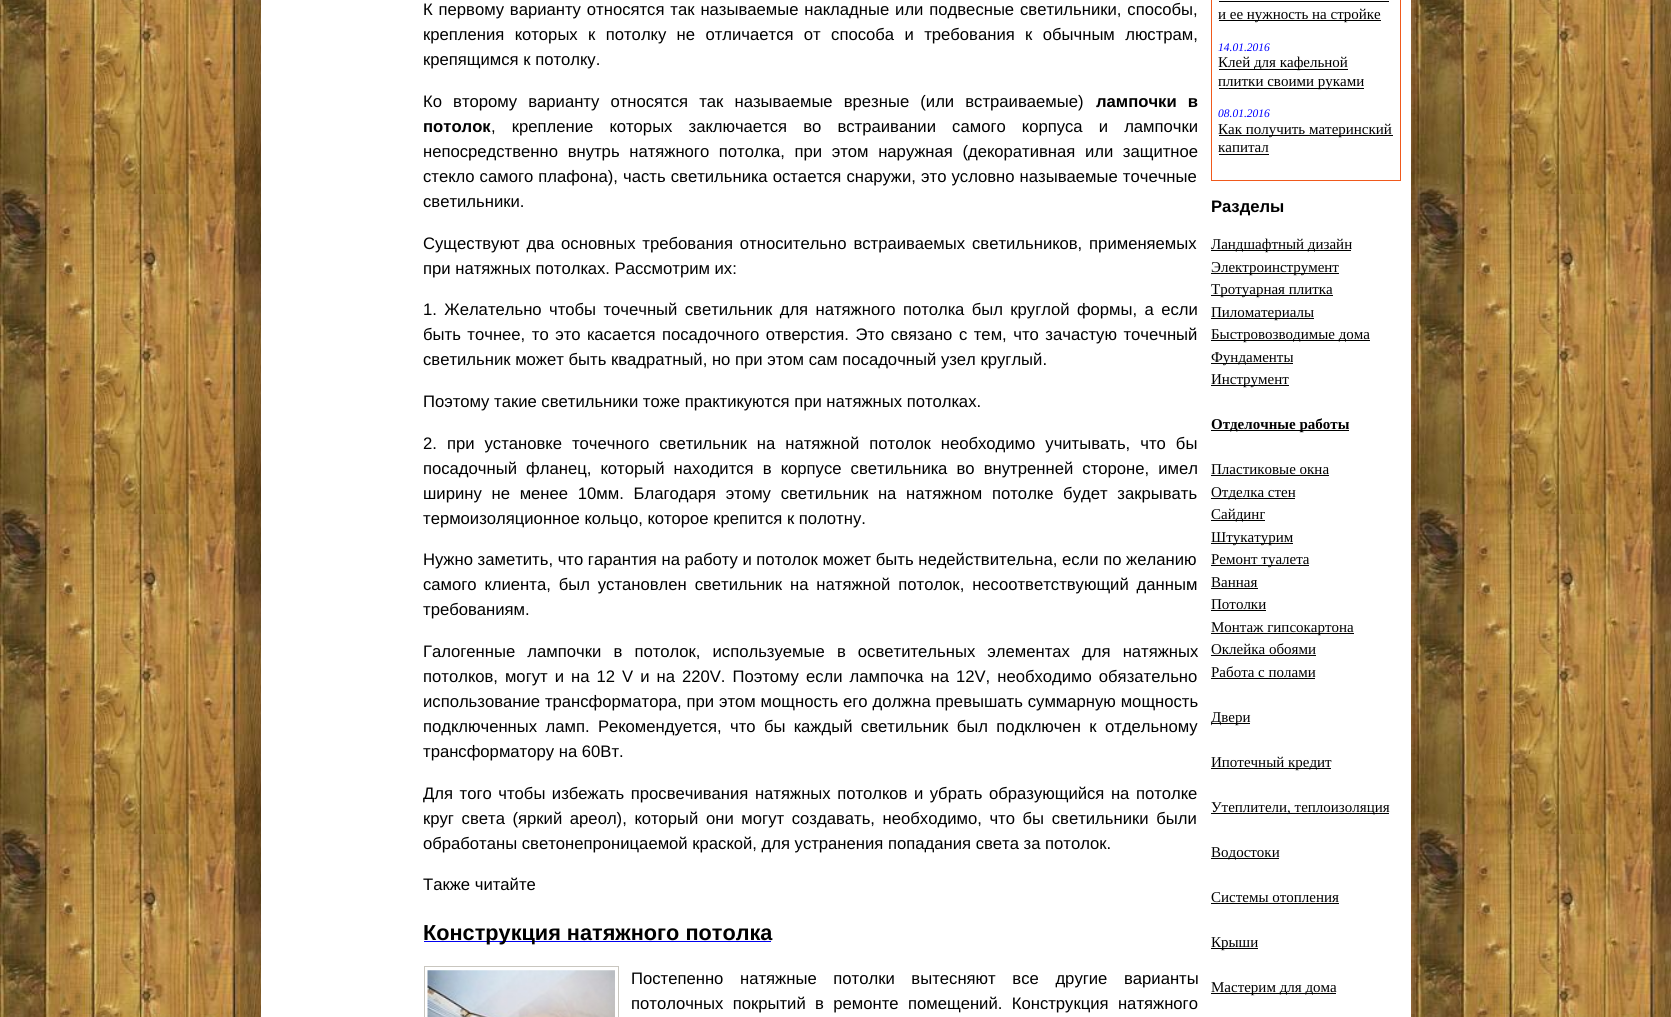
import math
import cairocffi as cairo

surface = cairo.ImageSurface(cairo.FORMAT_RGB24, 1671, 1017)
ctx = cairo.Context(surface)
options = cairo.FontOptions()
options.set_hint_metrics(cairo.HINT_METRICS_OFF)
options.set_hint_style(cairo.HINT_STYLE_NONE)
ctx.set_font_options(options)
ctx.set_miter_limit(4)


def rgb(r, g, b):
    ctx.set_source_rgb(r / 255, g / 255, b / 255)


def face(family, size, italic, bold):
    ctx.select_font_face(family, cairo.FONT_SLANT_ITALIC if italic else cairo.FONT_SLANT_NORMAL, cairo.FONT_WEIGHT_BOLD if bold else cairo.FONT_WEIGHT_NORMAL)
    ctx.set_font_size(size)


def label(x, y, s):
    ctx.move_to(x, y)
    ctx.show_text(s)


def tracked(x, y, s, letter, word):
    ctx.move_to(x, y)
    for ch in s:
        ctx.show_text(ch)
        ctx.rel_move_to(letter + word * (ch == ' '), 0)


def rect(x, y, w, h):
    ctx.rectangle(x, y, w, h)
    ctx.fill()


def image(path, x, y, w, h):
    ctx.save()
    ctx.set_source_surface(cairo.ImageSurface.create_from_png(path), x, y)
    ctx.rectangle(x, y, w, h)
    ctx.fill()
    ctx.restore()


rgb(255, 255, 255)
ctx.paint()
image('image0.png', 0, 0, 1671, 1017)
rgb(255, 255, 255)
rect(261, 0, 1150, 1017)
face('Liberation Sans', 16.65, 0, 0)
rgb(0, 0, 0)
tracked(423, 15, 'К первому варианту относятся так называемые накладные или подвесные светильники, способы,', 0, 1.25)
tracked(423, 40, 'крепления которых к потолку не отличается от способа и требования к обычным люстрам,', 0, 5.75)
label(423, 65, 'крепящимся к потолку.')
tracked(423, 107, 'Ко второму варианту относятся так называемые врезные (или встраиваемые)', 0, 6.5)
face('Liberation Sans', 16.65, 0, 1)
tracked(1096, 107, 'лампочки в', 0, 6.5)
label(423, 132, 'потолок')
face('Liberation Sans', 16.65, 0, 0)
tracked(491, 132, ', крепление которых заключается во встраивании самого корпуса и лампочки', 0, 11.5)
tracked(423, 157, 'непосредственно внутрь натяжного потолка, при этом наружная (декоративная или защитное', 0, 5)
tracked(423, 182, 'стекло самого плафона), часть светильника остается снаружи, это условно называемые точечные', 0, 0.5)
label(423, 207, 'светильники.')
tracked(423, 249, 'Существуют два основных требования относительно встраиваемых светильников, применяемых', 0, 2.25)
label(423, 274, 'при натяжных потолках. Рассмотрим их:')
tracked(423, 315, '1. Желательно чтобы точечный светильник для натяжного потолка был круглой формы, а если', 0, 2.75)
tracked(423, 340, 'быть точнее, то это касается посадочного отверстия. Это связано с тем, что зачастую точечный', 0, 1.9)
label(423, 365, 'светильник может быть квадратный, но при этом сам посадочный узел круглый.')
label(423, 407, 'Поэтому такие светильники тоже практикуются при натяжных потолках.')
tracked(423, 449, '2. при установке точечного светильник на натяжной потолок необходимо учитывать, что бы', 0, 5.4)
tracked(423, 474, 'посадочный фланец, который находится в корпусе светильника во внутренней стороне, имел', 0, 4.5)
tracked(423, 499, 'ширину не менее 10мм. Благодаря этому светильник на натяжном потолке будет закрывать', 0, 5.1)
label(423, 524, 'термоизоляционное кольцо, которое крепится к полотну.')
label(423, 565, 'Нужно заметить, что гарантия на работу и потолок может быть недействительна, если по желанию')
tracked(423, 590, 'самого клиента, был установлен светильник на натяжной потолок, несоответствующий данным', 0, 3.25)
label(423, 615, 'требованиям.')
tracked(423, 657, 'Галогенные лампочки в потолок, используемые в осветительных элементах для натяжных', 0, 7.5)
tracked(423, 682, 'потолков, могут и на 12 V и на 220V. Поэтому если лампочка на 12V, необходимо обязательно', 0, 2.4)
tracked(423, 707, 'использование трансформатора, при этом мощность его должна превышать суммарную мощность', 0, 0.25)
tracked(423, 732, 'подключенных ламп. Рекомендуется, что бы каждый светильник был подключен к отдельному', 0, 3.75)
label(423, 757, 'трансформатору на 60Вт.')
tracked(423, 799, 'Для того чтобы избежать просвечивания натяжных потолков и убрать образующийся на потолке', 0, 1.9)
tracked(423, 824, 'круг света (яркий ареол), который они могут создавать, необходимо, что бы светильники были', 0, 3)
label(423, 849, 'обработаны светонепроницаемой краской, для устранения попадания света за потолок.')
label(423, 890, 'Также читайте')
rgb(0, 0, 238)
rect(424, 941, 347, 1)
face('Liberation Sans', 21.7, 0, 1)
rgb(0, 0, 0)
label(423, 940, 'Конструкция натяжного потолка')
ctx.rectangle(424.5, 966.5, 194, 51)
rgb(201, 198, 191)
ctx.set_line_width(1)
ctx.stroke()
image('image1.png', 427, 970, 188, 47)
face('Liberation Sans', 16.65, 0, 0)
rgb(0, 0, 0)
tracked(631, 984, 'Постепенно натяжные потолки вытесняют все другие варианты', 0, 12)
tracked(631, 1009, 'потолочных покрытий в ремонте помещений. Конструкция натяжного', 0, 4.75)
ctx.rectangle(1211.5, -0.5, 189, 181)
rgb(240, 89, 27)
ctx.stroke()
rgb(0, 0, 0)
rect(1219, 20, 162, 1)
face('Liberation Serif', 15, 0, 0)
label(1218, 19, 'и ее нужность на стройке')
rect(1219, 1, 170, 1)
face('Liberation Serif', 11.5, 1, 0)
rgb(0, 0, 255)
label(1218, 51, '14.01.2016')
rgb(0, 0, 0)
rect(1219, 69, 129, 1)
face('Liberation Serif', 15, 0, 0)
label(1218, 67, 'Клей для кафельной')
rect(1219, 88, 145, 1)
label(1218, 86, 'плитки своими руками')
face('Liberation Serif', 11.5, 1, 0)
rgb(0, 0, 255)
label(1218, 117, '08.01.2016')
rgb(0, 0, 0)
rect(1219, 135, 174, 1)
face('Liberation Serif', 15, 0, 0)
label(1218, 134, 'Как получить материнский')
label(1218, 152, 'капитал')
rect(1219, 154, 50, 1)
face('Liberation Sans', 16.65, 0, 1)
label(1211, 212, 'Разделы')
rect(1211, 250, 140, 1)
face('Liberation Serif', 15, 0, 0)
label(1211, 249, 'Ландшафтный дизайн')
rect(1211, 273, 128, 1)
label(1211, 272, 'Электроинструмент')
rect(1211, 295, 122, 1)
label(1211, 294, 'Тротуарная плитка')
rect(1211, 318, 103, 1)
label(1211, 317, 'Пиломатериалы')
rect(1211, 340, 159, 1)
label(1211, 339, 'Быстровозводимые дома')
rect(1211, 363, 82, 1)
label(1211, 362, 'Фундаменты')
rect(1211, 385, 78, 1)
label(1211, 384, 'Инструмент')
rect(1211, 430, 138, 1)
face('Liberation Serif', 15, 0, 1)
label(1211, 429, 'Отделочные работы')
face('Liberation Serif', 15, 0, 0)
label(1211, 474, 'Пластиковые окна')
rect(1211, 475, 118, 1)
rect(1211, 498, 84, 1)
label(1211, 497, 'Отделка стен')
rect(1211, 520, 54, 1)
label(1211, 519, 'Сайдинг')
rect(1211, 543, 82, 1)
label(1211, 542, 'Штукатурим')
rect(1211, 565, 98, 1)
label(1211, 564, 'Ремонт туалета')
label(1211, 587, 'Ванная')
rect(1211, 588, 47, 1)
label(1211, 609, 'Потолки')
rect(1211, 610, 55, 1)
rect(1211, 633, 143, 1)
label(1211, 632, 'Монтаж гипсокартона')
label(1211, 654, 'Оклейка обоями')
rect(1211, 655, 105, 1)
label(1211, 677, 'Работа с полами')
rect(1211, 678, 104, 1)
rect(1211, 723, 39, 1)
label(1211, 722, 'Двери')
rect(1211, 768, 120, 1)
label(1211, 767, 'Ипотечный кредит')
rect(1211, 813, 178, 1)
label(1211, 812, 'Утеплители, теплоизоляция')
rect(1211, 858, 68, 1)
label(1211, 857, 'Водостоки')
label(1211, 902, 'Системы отопления')
rect(1211, 903, 128, 1)
rect(1211, 948, 47, 1)
label(1211, 947, 'Крыши')
rect(1211, 993, 125, 1)
label(1211, 992, 'Мастерим для дома')
surface.write_to_png('render.png')
